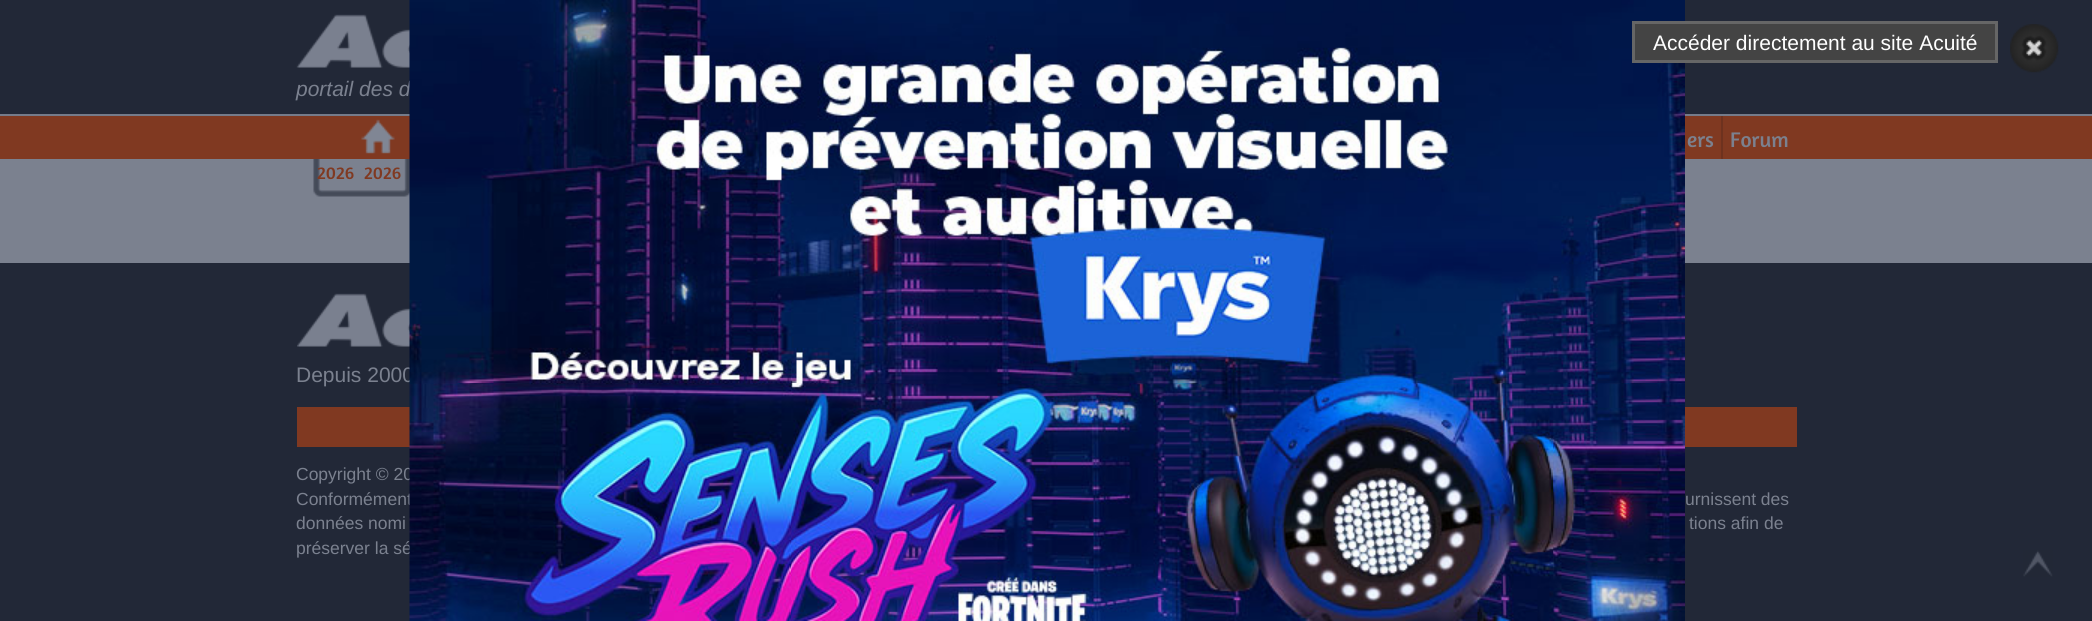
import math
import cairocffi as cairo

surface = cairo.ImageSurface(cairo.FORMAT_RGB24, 2092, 621)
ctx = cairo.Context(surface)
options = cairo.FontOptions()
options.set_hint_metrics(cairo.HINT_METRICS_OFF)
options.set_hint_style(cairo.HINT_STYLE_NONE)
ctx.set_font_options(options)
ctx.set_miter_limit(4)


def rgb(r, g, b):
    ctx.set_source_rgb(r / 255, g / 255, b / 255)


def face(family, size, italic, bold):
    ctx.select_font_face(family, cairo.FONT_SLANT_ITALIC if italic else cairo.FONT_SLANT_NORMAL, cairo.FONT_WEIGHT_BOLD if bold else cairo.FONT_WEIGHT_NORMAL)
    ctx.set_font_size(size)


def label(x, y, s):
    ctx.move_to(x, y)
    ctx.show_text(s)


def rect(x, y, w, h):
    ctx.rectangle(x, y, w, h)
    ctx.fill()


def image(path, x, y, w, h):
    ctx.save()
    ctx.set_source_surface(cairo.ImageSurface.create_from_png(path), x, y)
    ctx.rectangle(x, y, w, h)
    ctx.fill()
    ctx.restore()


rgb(123, 129, 143)
ctx.paint()
image('image2.png', 313, 159, 97, 38)
rgb(34, 40, 55)
rect(0, 263, 2092, 358)
image('image3.png', 297, 293, 113, 54)
face('Liberation Sans', 21, 0, 0)
rgb(123, 129, 143)
label(296, 382, 'Depuis 2000')
rgb(128, 57, 33)
rect(297, 407, 1500, 40)
face('Liberation Sans', 17.5, 0, 0)
rgb(123, 129, 143)
label(296, 480, 'Copyright © 20')
label(296, 505, 'Conformément')
label(296, 554, 'préserver la sé')
rgb(34, 40, 55)
rect(0, 0, 2092, 114)
image('image4.png', 296, 14, 114, 54)
face('Liberation Sans', 21, 1, 0)
rgb(123, 129, 143)
label(296, 96, 'portail des d')
rgb(128, 57, 33)
rect(0, 116, 2092, 43)
rgb(117, 123, 138)
rect(0, 114, 2092, 2)
image('image0.png', 409, 0, 1276, 621)
rgb(68, 68, 68)
ctx.rectangle(1633.5, 22.5, 363, 39)
ctx.fill_preserve()
rgb(102, 102, 102)
ctx.set_line_width(3)
ctx.stroke()
face('Liberation Sans', 21, 0, 0)
rgb(255, 255, 255)
label(1653, 50, 'Accéder directement au site Acuité')
image('image1.png', 2010, 24, 49, 49)
face('Amaranth', 18, 0, 0)
rgb(128, 57, 33)
label(317, 179, '2026')
label(364, 179, '2026')
face('Liberation Sans', 17.5, 0, 0)
rgb(123, 129, 143)
label(1685, 505, 'urnissent des')
label(296, 529, 'données nomi')
label(1689, 529, 'tions afin de')
image('image5.png', 361, 119, 34, 35)
face('Amaranth', 21.5, 0, 0)
label(1687, 147, 'ers')
rgb(110, 50, 31)
rect(1721, 116, 2, 43)
rgb(123, 129, 143)
label(1730, 147, 'Forum')
image('image6.png', 2023, 550, 30, 27)
surface.write_to_png('render.png')
